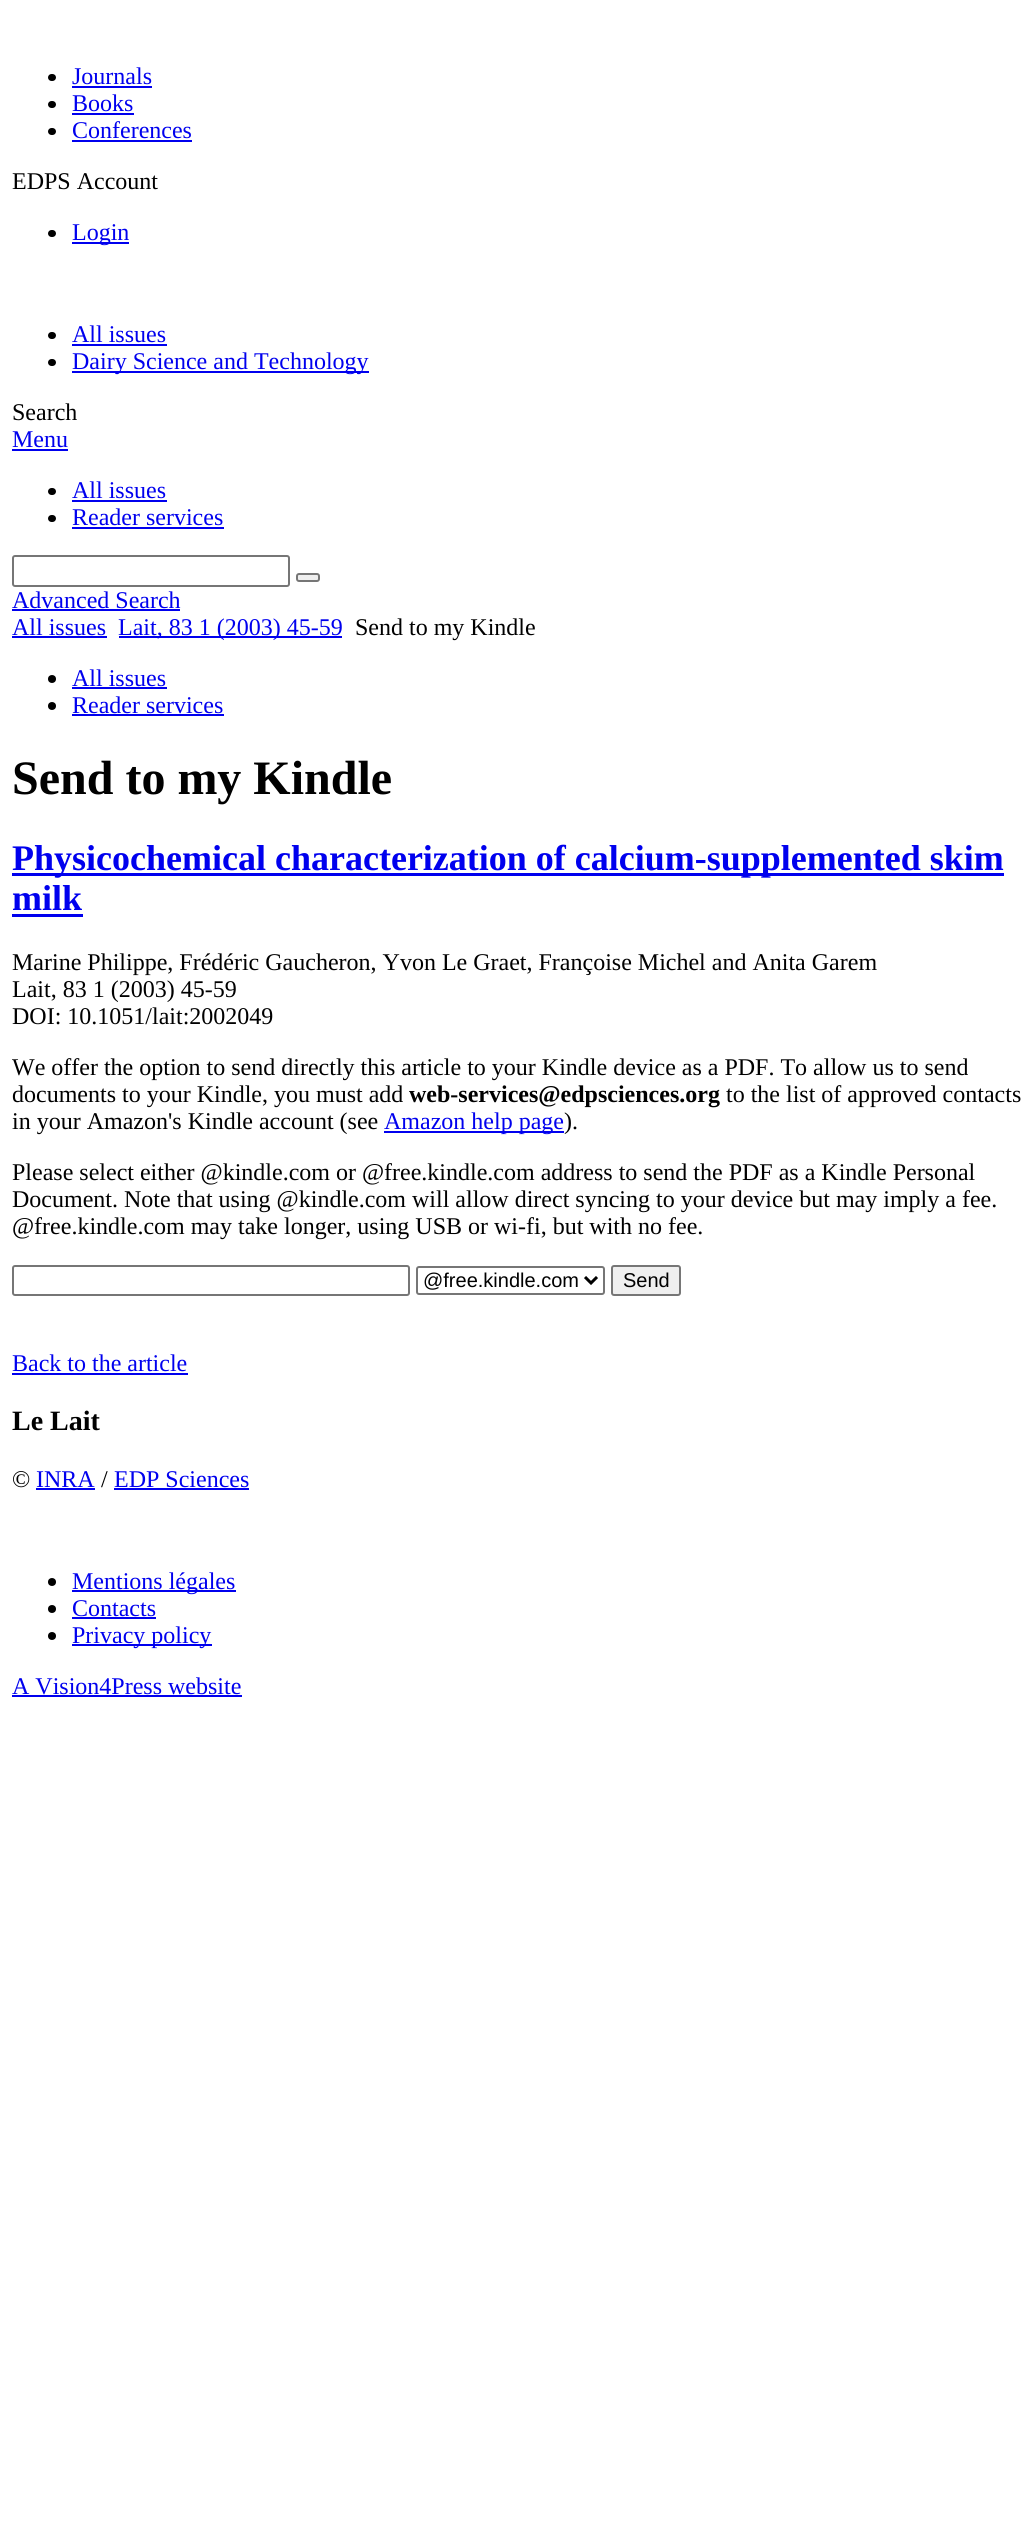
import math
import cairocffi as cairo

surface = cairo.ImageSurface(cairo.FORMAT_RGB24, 1036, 2541)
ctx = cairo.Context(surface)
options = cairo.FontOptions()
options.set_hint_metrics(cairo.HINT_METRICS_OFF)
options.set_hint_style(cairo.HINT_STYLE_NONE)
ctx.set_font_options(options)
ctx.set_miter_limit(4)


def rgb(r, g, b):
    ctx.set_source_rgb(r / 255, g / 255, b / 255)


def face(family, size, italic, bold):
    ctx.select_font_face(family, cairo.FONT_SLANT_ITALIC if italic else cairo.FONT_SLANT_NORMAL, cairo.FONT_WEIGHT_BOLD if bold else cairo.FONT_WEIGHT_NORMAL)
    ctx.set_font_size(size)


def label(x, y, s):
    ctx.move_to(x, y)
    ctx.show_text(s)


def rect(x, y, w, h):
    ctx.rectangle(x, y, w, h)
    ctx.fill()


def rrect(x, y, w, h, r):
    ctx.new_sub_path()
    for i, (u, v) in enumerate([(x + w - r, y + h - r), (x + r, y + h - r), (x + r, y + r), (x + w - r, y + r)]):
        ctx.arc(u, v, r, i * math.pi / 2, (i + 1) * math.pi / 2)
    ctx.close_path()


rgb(255, 255, 255)
ctx.paint()
rgb(0, 0, 0)
rrect(48, 74, 8, 7, 3.5)
ctx.fill()
face('Liberation Serif', 24, 0, 0)
rgb(0, 0, 238)
label(72, 84, 'Journals')
rect(72, 86, 80, 2)
rgb(0, 0, 0)
rrect(48, 101, 8, 7, 3.5)
ctx.fill()
rgb(0, 0, 238)
label(72, 111, 'Books')
rect(72, 113, 62, 2)
rgb(0, 0, 0)
rrect(48, 128, 8, 7, 3.5)
ctx.fill()
rgb(0, 0, 238)
label(72, 138, 'Conferences')
rect(72, 140, 120, 2)
rgb(0, 0, 0)
label(12, 189, 'EDPS Account')
rrect(48, 230, 8, 7, 3.5)
ctx.fill()
rgb(0, 0, 238)
rect(72, 242, 57, 2)
label(72, 240, 'Login')
rgb(0, 0, 0)
rrect(48, 332, 8, 7, 3.5)
ctx.fill()
rgb(0, 0, 238)
label(72, 342, 'All issues')
rect(72, 344, 95, 2)
rgb(0, 0, 0)
rrect(48, 359, 8, 7, 3.5)
ctx.fill()
rgb(0, 0, 238)
rect(72, 371, 297, 2)
label(72, 369, 'Dairy Science and Technology')
rgb(0, 0, 0)
label(12, 420, 'Search')
rgb(0, 0, 238)
label(12, 447, 'Menu')
rect(12, 449, 56, 2)
rgb(0, 0, 0)
rrect(48, 488, 8, 7, 3.5)
ctx.fill()
rgb(0, 0, 238)
label(72, 498, 'All issues')
rect(72, 500, 95, 2)
rgb(0, 0, 0)
rrect(48, 515, 8, 7, 3.5)
ctx.fill()
rgb(0, 0, 238)
label(72, 525, 'Reader services')
rect(72, 527, 152, 2)
rrect(13, 556, 276, 30, 2)
rgb(118, 118, 118)
ctx.stroke()
rgb(239, 239, 239)
rrect(297, 574, 22, 7, 2)
ctx.fill_preserve()
rgb(118, 118, 118)
ctx.stroke()
rgb(0, 0, 238)
label(12, 608, 'Advanced Search')
rect(12, 609, 168, 2)
label(12, 635, 'All issues')
rect(12, 636, 95, 2)
rect(119, 636, 223, 2)
label(118, 635, 'Lait, 83 1 (2003) 45-59')
rgb(0, 0, 0)
label(355, 635, 'Send to my Kindle')
ctx.new_path()
ctx.arc(52, 679, 4, 0, 2 * math.pi)
ctx.fill()
rgb(0, 0, 238)
label(72, 686, 'All issues')
rect(72, 687, 95, 2)
rgb(0, 0, 0)
ctx.new_path()
ctx.arc(52, 706, 4, 0, 2 * math.pi)
ctx.fill()
rgb(0, 0, 238)
label(72, 713, 'Reader services')
rect(72, 714, 152, 2)
face('Liberation Serif', 48, 0, 1)
rgb(0, 0, 0)
label(12, 794, 'Send to my Kindle')
rgb(0, 0, 238)
rect(12, 873, 992, 3)
face('Liberation Serif', 36, 0, 1)
label(12, 870, 'Physicochemical characterization of calcium-supplemented skim')
label(12, 910, 'milk')
rect(12, 914, 71, 3)
face('Liberation Serif', 24, 0, 0)
rgb(0, 0, 0)
label(12, 970, 'Marine Philippe, Frédéric Gaucheron, Yvon Le Graet, Françoise Michel and Anita Garem')
label(12, 997, 'Lait, 83 1 (2003) 45-59')
label(12, 1024, 'DOI: 10.1051/lait:2002049')
label(12, 1075, 'We offer the option to send directly this article to your Kindle device as a PDF. To allow us to send')
label(12, 1102, 'documents to your Kindle, you must add')
face('Liberation Serif', 24, 0, 1)
label(409, 1102, 'web-services@edpsciences.org')
face('Liberation Serif', 24, 0, 0)
label(726, 1102, 'to the list of approved contacts')
label(12, 1129, 'in your Amazon\'s Kindle account (see')
rgb(0, 0, 238)
rect(384, 1131, 180, 2)
label(384, 1129, 'Amazon help page')
rgb(0, 0, 0)
label(564, 1129, ').')
label(12, 1180, 'Please select either @kindle.com or @free.kindle.com address to send the PDF as a Kindle Personal')
label(12, 1207, 'Document. Note that using @kindle.com will allow direct syncing to your device but may imply a fee.')
label(12, 1234, '@free.kindle.com may take longer, using USB or wi-fi, but with no fee.')
rrect(13, 1266, 396, 29, 2)
rgb(118, 118, 118)
ctx.stroke()
rrect(417, 1267, 187, 27, 2)
ctx.stroke()
ctx.new_path()
ctx.move_to(585, 1277)
ctx.line_to(591, 1283)
ctx.line_to(597, 1277)
rgb(0, 0, 0)
ctx.set_line_width(3)
ctx.stroke()
face('Liberation Sans', 20, 0, 0)
label(423, 1287, '@free.kindle.com')
rgb(239, 239, 239)
rrect(612, 1266, 68, 29, 2)
ctx.fill_preserve()
rgb(118, 118, 118)
ctx.set_line_width(2)
ctx.stroke()
rgb(0, 0, 0)
label(623, 1287, 'Send')
face('Liberation Serif', 24, 0, 0)
rgb(0, 0, 238)
label(12, 1371, 'Back to the article')
rect(12, 1373, 176, 2)
face('Liberation Serif', 28, 0, 1)
rgb(0, 0, 0)
label(12, 1430, 'Le Lait')
face('Liberation Serif', 24, 0, 0)
label(12, 1487, '©')
rgb(0, 0, 238)
label(36, 1487, 'INRA')
rect(36, 1488, 59, 2)
rgb(0, 0, 0)
label(101, 1487, '/')
rgb(0, 0, 238)
label(114, 1487, 'EDP Sciences')
rect(114, 1488, 135, 2)
rgb(0, 0, 0)
ctx.new_path()
ctx.arc(52, 1582, 4, 0, 2 * math.pi)
ctx.fill()
rgb(0, 0, 238)
rect(72, 1590, 164, 2)
label(72, 1589, 'Mentions légales')
rgb(0, 0, 0)
ctx.new_path()
ctx.arc(52, 1609, 4, 0, 2 * math.pi)
ctx.fill()
rgb(0, 0, 238)
label(72, 1616, 'Contacts')
rect(72, 1617, 84, 2)
rgb(0, 0, 0)
ctx.new_path()
ctx.arc(52, 1636, 4, 0, 2 * math.pi)
ctx.fill()
rgb(0, 0, 238)
rect(72, 1644, 140, 2)
label(72, 1643, 'Privacy policy')
label(12, 1694, 'A Vision4Press website')
rect(12, 1695, 230, 2)
surface.write_to_png('render.png')
